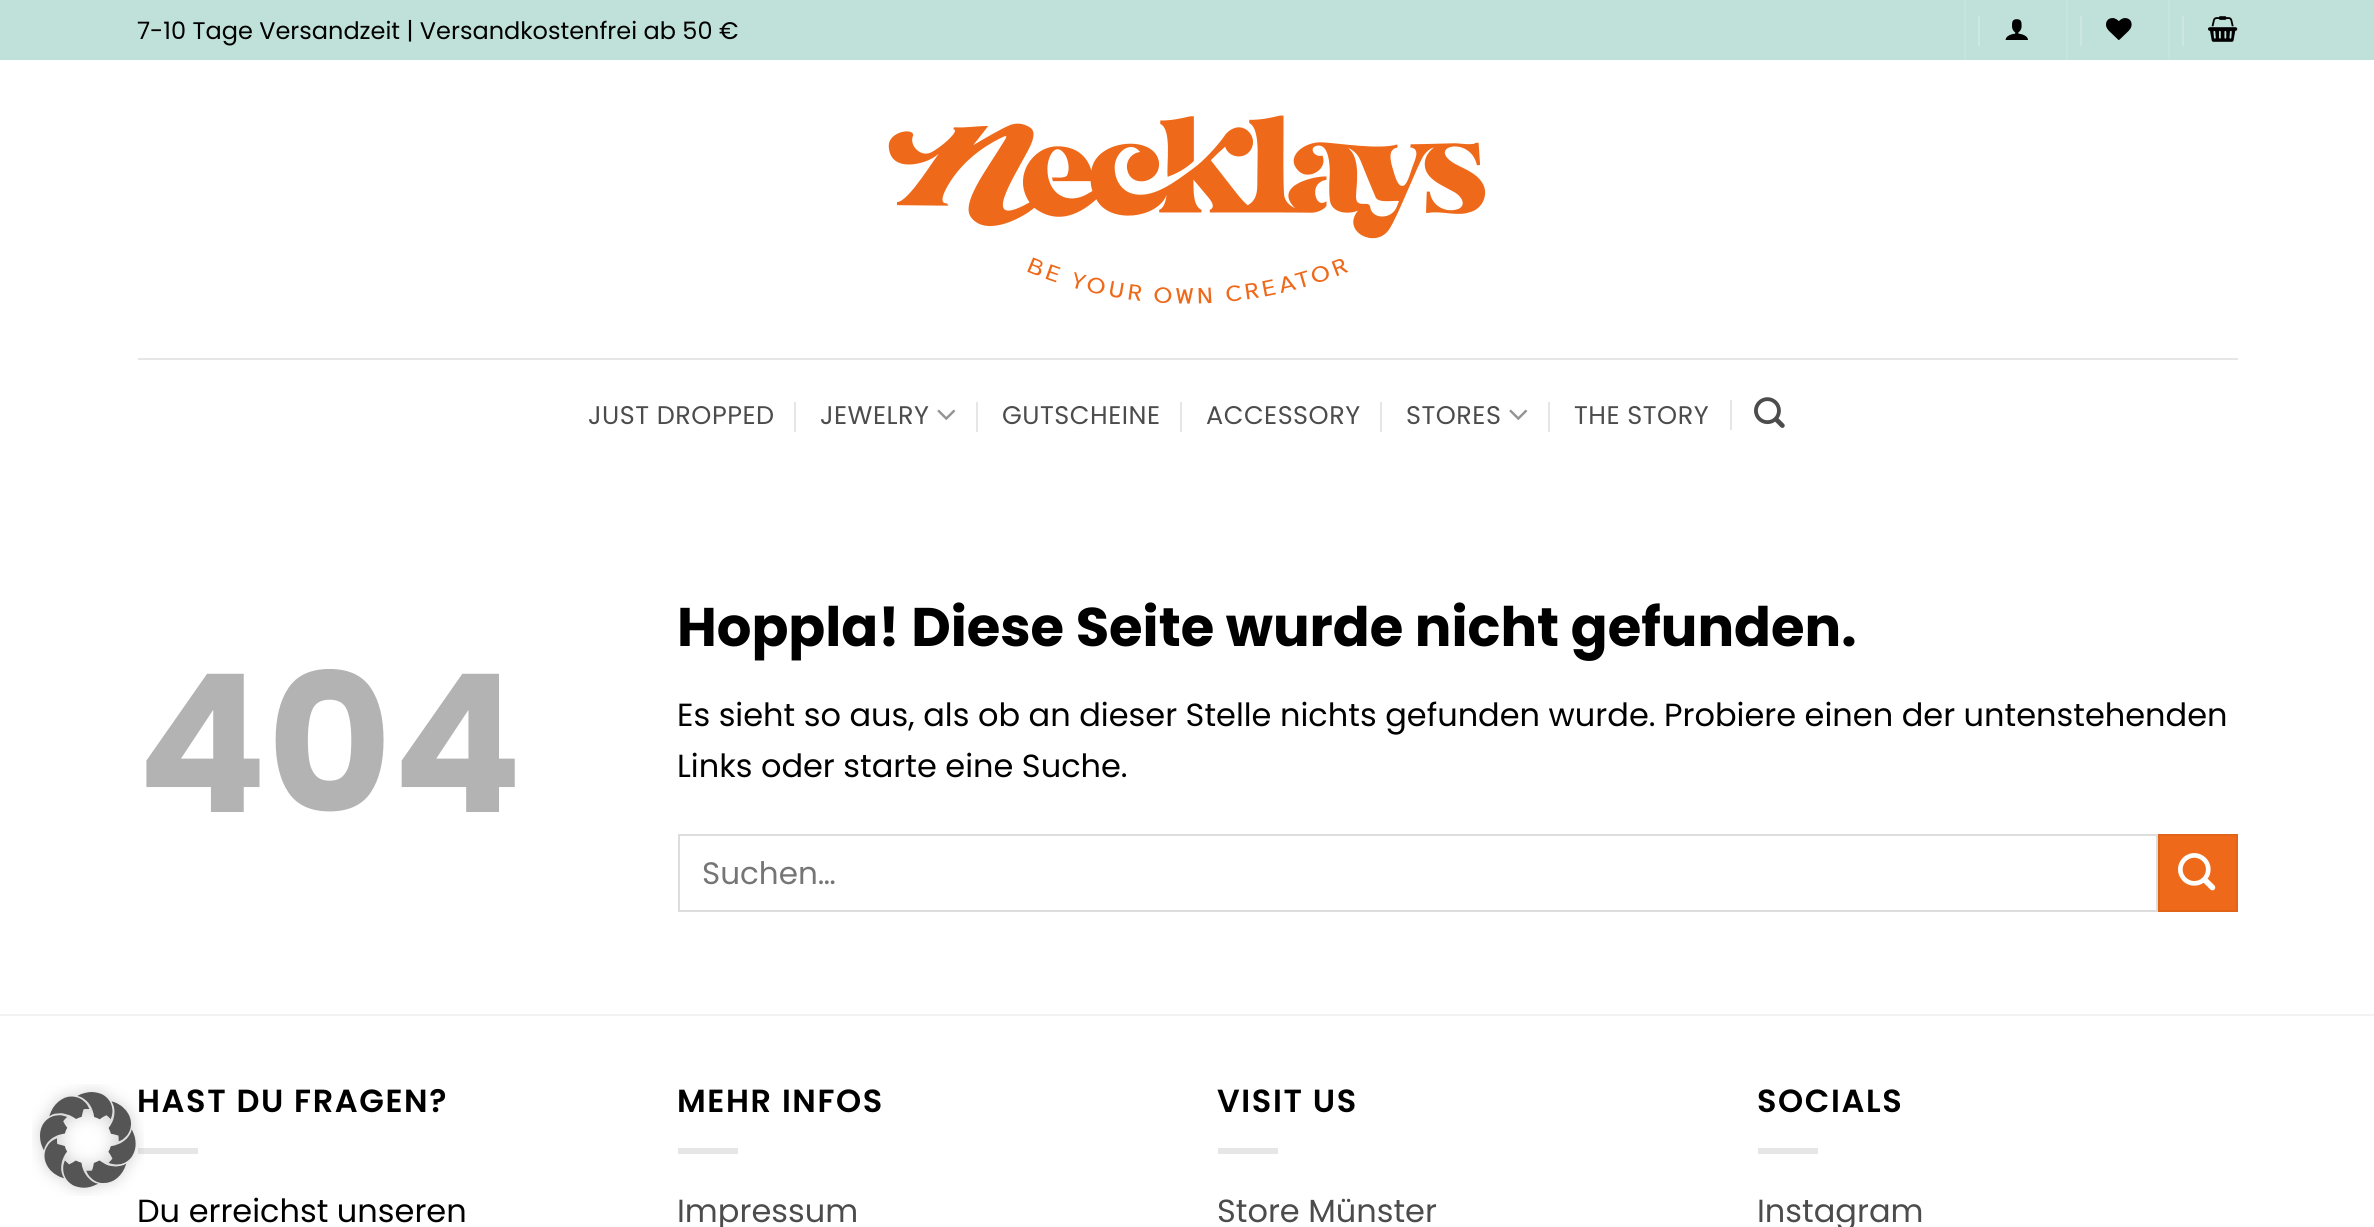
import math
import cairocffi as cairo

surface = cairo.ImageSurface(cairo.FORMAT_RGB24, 2374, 1227)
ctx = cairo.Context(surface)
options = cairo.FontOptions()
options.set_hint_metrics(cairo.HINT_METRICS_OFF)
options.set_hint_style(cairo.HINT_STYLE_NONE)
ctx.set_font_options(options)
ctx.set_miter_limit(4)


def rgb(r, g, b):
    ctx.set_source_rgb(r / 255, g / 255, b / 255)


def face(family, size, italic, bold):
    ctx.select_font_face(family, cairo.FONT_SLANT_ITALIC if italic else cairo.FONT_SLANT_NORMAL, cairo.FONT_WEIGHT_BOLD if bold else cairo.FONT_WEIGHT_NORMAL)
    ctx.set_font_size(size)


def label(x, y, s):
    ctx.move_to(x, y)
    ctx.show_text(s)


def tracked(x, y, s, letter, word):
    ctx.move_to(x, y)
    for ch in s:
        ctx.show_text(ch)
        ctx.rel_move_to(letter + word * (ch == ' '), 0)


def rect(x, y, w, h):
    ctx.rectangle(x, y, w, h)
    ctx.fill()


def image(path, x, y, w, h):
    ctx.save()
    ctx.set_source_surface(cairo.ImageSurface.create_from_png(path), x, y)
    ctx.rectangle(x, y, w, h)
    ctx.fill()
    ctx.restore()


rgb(255, 255, 255)
ctx.paint()
face('Poppins SemiBold', 32, 0, 0)
rgb(0, 0, 0)
tracked(137, 1112, 'HAST DU FRAGEN?', 1.6, 0)
rgb(230, 230, 230)
rect(138, 1148, 60, 6)
image('image0.png', 32, 1084, 112, 112)
rgb(191, 225, 217)
rect(0, 0, 2374, 60)
face('Poppins', 24, 0, 0)
rgb(0, 0, 0)
label(137, 39, '7-10 Tage Versandzeit | Versandkostenfrei ab 50 €')
rgb(197, 228, 221)
rect(1964, 0, 2, 60)
rgb(204, 231, 225)
rect(1978, 16, 2, 30)
image('image1.png', 2005, 19, 23, 21)
rgb(197, 228, 221)
rect(2066, 0, 2, 60)
rgb(204, 231, 225)
rect(2080, 16, 2, 30)
image('image2.png', 2106, 18, 26, 22)
rgb(197, 228, 221)
rect(2168, 0, 2, 60)
rgb(204, 231, 225)
rect(2182, 16, 2, 30)
image('image3.png', 2208, 16, 30, 26)
image('image4.png', 888, 115, 598, 189)
rgb(230, 230, 230)
rect(138, 358, 2100, 2)
face('Poppins', 25.5, 0, 0)
rgb(76, 76, 76)
tracked(588, 424, 'JUST DROPPED', 0.5, 0)
rgb(230, 230, 230)
rect(794, 402, 2, 30)
rgb(76, 76, 76)
tracked(820, 424, 'JEWELRY', 0.5, 0)
image('image5.png', 937, 409, 19, 11)
rgb(230, 230, 230)
rect(976, 402, 2, 30)
rgb(76, 76, 76)
tracked(1002, 424, 'GUTSCHEINE', 0.5, 0)
rgb(230, 230, 230)
rect(1180, 402, 2, 30)
rgb(76, 76, 76)
tracked(1206, 424, 'ACCESSORY', 0.5, 0)
rgb(230, 230, 230)
rect(1380, 402, 2, 30)
rgb(76, 76, 76)
tracked(1406, 424, 'STORES', 0.5, 0)
image('image5.png', 1509, 409, 19, 11)
rgb(230, 230, 230)
rect(1548, 402, 2, 30)
rgb(76, 76, 76)
tracked(1574, 424, 'THE STORY', 0.5, 0)
rgb(230, 230, 230)
rect(1730, 400, 2, 30)
image('image6.png', 1754, 397, 31, 31)
face('Poppins', 192, 0, 1)
rgb(179, 179, 179)
label(137, 812, '404')
face('Poppins', 54.4, 0, 1)
rgb(0, 0, 0)
label(677, 646, 'Hoppla! Diese Seite wurde nicht gefunden.')
face('Poppins', 32, 0, 0)
label(677, 726, 'Es sieht so aus, als ob an dieser Stelle nichts gefunden wurde. Probiere einen der untenstehenden')
label(677, 777, 'Links oder starte eine Suche.')
ctx.rectangle(679, 835, 1478, 76)
rgb(221, 221, 221)
ctx.stroke()
face('Poppins', 31, 0, 0)
rgb(117, 117, 117)
label(702, 884, 'Suchen…')
rgb(238, 105, 25)
ctx.rectangle(2159, 835, 78, 76)
ctx.fill_preserve()
rgb(226, 100, 24)
ctx.stroke()
image('image7.png', 2178, 853, 38, 38)
rgb(242, 242, 242)
rect(0, 1014, 2374, 2)
face('Poppins', 32, 0, 0)
rgb(0, 0, 0)
label(137, 1222, 'Du erreichst unseren')
face('Poppins SemiBold', 32, 0, 0)
tracked(677, 1112, 'MEHR INFOS', 1.6, 0)
rgb(230, 230, 230)
rect(678, 1148, 60, 6)
face('Poppins', 32, 0, 0)
rgb(76, 76, 76)
label(677, 1222, 'Impressum')
face('Poppins SemiBold', 32, 0, 0)
rgb(0, 0, 0)
tracked(1217, 1112, 'VISIT US', 1.6, 0)
rgb(230, 230, 230)
rect(1218, 1148, 60, 6)
face('Poppins', 32, 0, 0)
rgb(76, 76, 76)
label(1217, 1222, 'Store Münster')
face('Poppins SemiBold', 32, 0, 0)
rgb(0, 0, 0)
tracked(1757, 1112, 'SOCIALS', 1.6, 0)
rgb(230, 230, 230)
rect(1758, 1148, 60, 6)
face('Poppins', 32, 0, 0)
rgb(76, 76, 76)
label(1757, 1222, 'Instagram')
surface.write_to_png('render.png')
